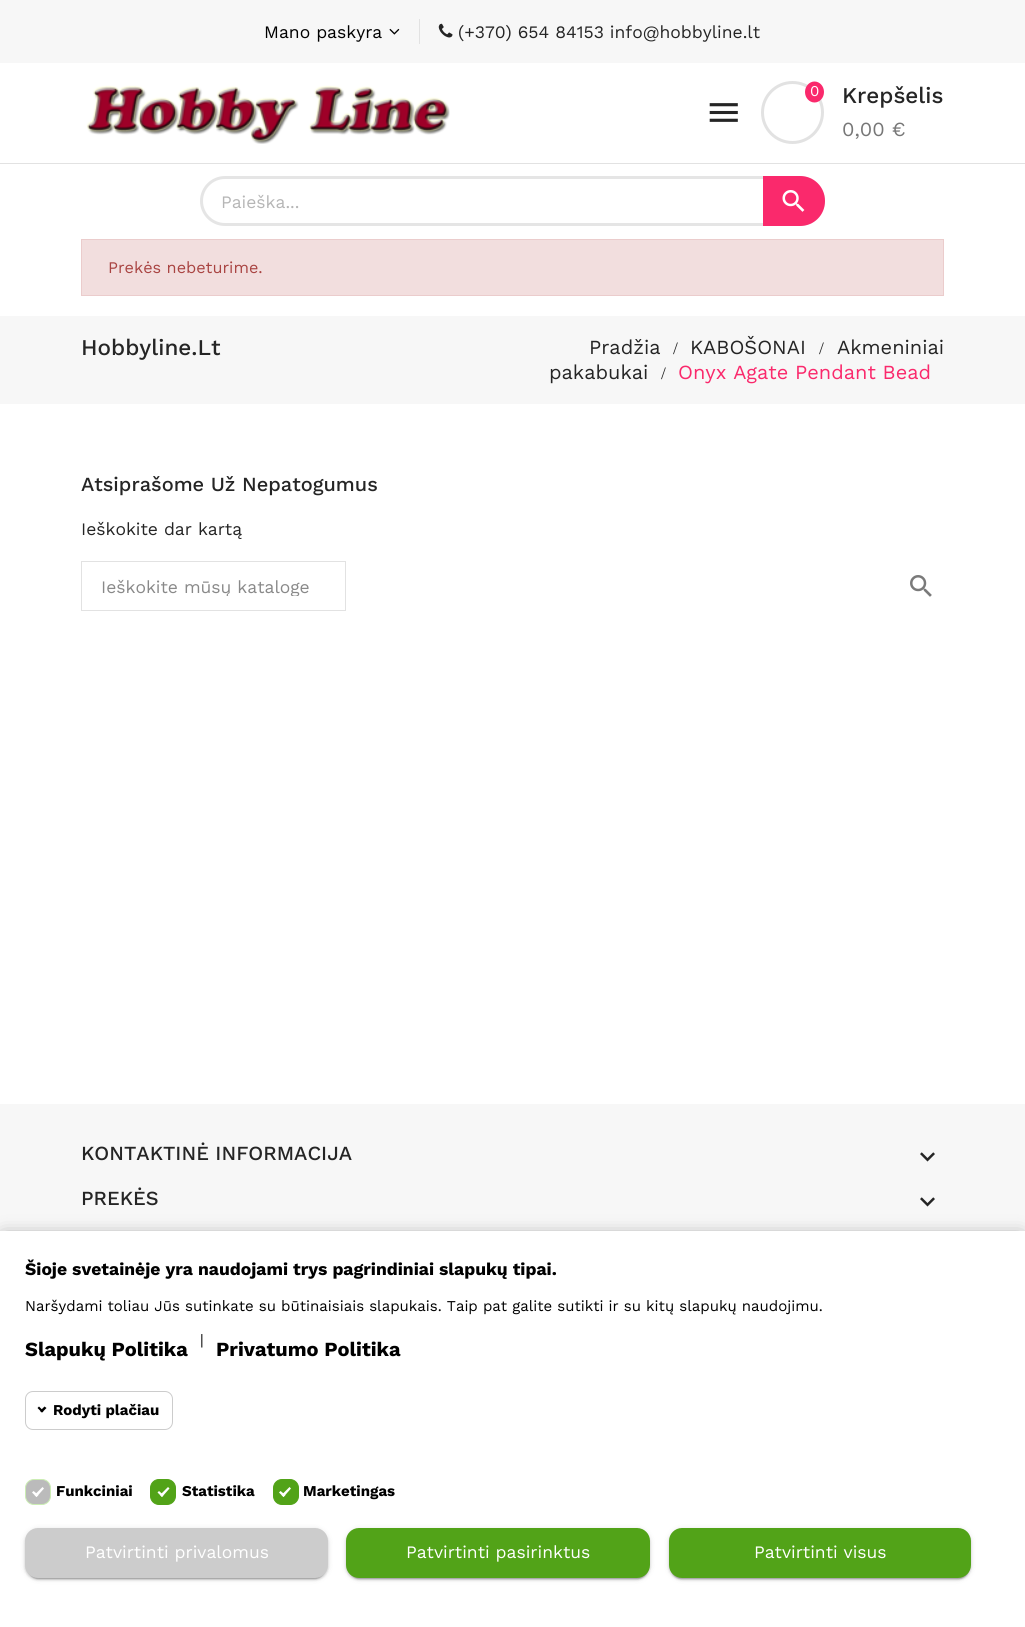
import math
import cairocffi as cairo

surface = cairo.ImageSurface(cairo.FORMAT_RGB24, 1025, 1627)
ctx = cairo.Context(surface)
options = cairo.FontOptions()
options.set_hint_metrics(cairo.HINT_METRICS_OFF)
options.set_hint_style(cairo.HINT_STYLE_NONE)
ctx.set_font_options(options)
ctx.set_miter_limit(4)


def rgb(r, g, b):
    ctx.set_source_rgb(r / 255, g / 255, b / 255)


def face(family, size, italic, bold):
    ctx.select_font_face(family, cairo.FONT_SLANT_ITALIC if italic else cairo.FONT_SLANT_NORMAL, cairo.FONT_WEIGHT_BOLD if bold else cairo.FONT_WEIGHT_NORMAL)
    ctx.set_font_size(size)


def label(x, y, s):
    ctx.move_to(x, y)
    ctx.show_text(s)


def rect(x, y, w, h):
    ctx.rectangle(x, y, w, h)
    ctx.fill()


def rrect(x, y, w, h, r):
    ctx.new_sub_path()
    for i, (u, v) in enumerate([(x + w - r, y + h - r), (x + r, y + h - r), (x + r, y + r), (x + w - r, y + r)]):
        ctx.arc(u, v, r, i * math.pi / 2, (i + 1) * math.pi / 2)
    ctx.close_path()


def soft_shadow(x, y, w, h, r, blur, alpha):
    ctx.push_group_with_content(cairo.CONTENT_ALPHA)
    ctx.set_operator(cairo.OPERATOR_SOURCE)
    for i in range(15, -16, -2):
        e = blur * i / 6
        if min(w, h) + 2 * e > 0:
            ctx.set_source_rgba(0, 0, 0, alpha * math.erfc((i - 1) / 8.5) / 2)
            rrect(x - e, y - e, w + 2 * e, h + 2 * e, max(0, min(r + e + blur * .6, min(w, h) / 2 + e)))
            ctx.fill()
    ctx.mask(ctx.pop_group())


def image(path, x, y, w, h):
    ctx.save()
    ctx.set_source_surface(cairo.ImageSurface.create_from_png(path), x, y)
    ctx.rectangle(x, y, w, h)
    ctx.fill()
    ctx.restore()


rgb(255, 255, 255)
ctx.paint()
rgb(247, 247, 247)
rect(0, 0, 1025, 63)
face('Work Sans', 17.5, 0, 0)
rgb(0, 0, 0)
label(264, 38, 'Mano paskyra')
image('image0.png', 389, 28, 11, 7)
rgb(226, 226, 226)
rect(419, 19, 1, 25)
image('image1.png', 438, 23, 15, 15)
rgb(37, 37, 37)
label(458, 38, '(+370) 654 84153 info@hobbyline.lt')
image('image2.png', 86, 85, 364, 59)
image('image3.png', 709, 103, 29, 19)
ctx.arc(792.5, 112.5, 30, 0, 2 * math.pi)
rgb(226, 226, 226)
ctx.set_line_width(3)
ctx.stroke()
rgb(250, 41, 108)
ctx.new_path()
ctx.move_to(814.5, 81.5)
ctx.curve_to(819.5, 81.5, 824, 86, 824, 92)
ctx.curve_to(824, 98, 819.5, 102.5, 814.5, 102.5)
ctx.curve_to(809.5, 102.5, 805, 98, 805, 92)
ctx.curve_to(805, 86, 809.5, 81.5, 814.5, 81.5)
ctx.close_path()
ctx.fill()
face('Work Sans', 15, 0, 0)
rgb(255, 255, 255)
label(810, 96, '0')
face('Work Sans Medium', 22.5, 0, 0)
rgb(37, 37, 37)
label(842, 103, 'Krepšelis')
face('Work Sans', 20, 0, 0)
rgb(119, 119, 119)
label(842, 136, '0,00 €')
rgb(226, 226, 226)
rect(0, 163, 1025, 1)
rrect(201.5, 177.5, 622, 47, 23.5)
rgb(229, 229, 229)
ctx.stroke()
face('Work Sans', 17.5, 0, 0)
rgb(182, 182, 182)
label(221, 208, 'Paieška...')
rgb(250, 41, 108)
ctx.new_path()
ctx.move_to(763, 176)
ctx.line_to(800, 176)
ctx.curve_to(814, 176, 825, 187, 825, 201)
ctx.curve_to(825, 215, 814, 226, 800, 226)
ctx.line_to(763, 226)
ctx.close_path()
ctx.fill()
image('image4.png', 782, 190, 23, 22)
rgb(242, 222, 222)
ctx.rectangle(81.5, 239.5, 862, 56)
ctx.fill_preserve()
rgb(235, 204, 204)
ctx.set_line_width(1)
ctx.stroke()
face('Work Sans', 16.25, 0, 0)
rgb(169, 68, 66)
label(108, 273, 'Prekės nebeturime.')
rgb(247, 247, 247)
rect(0, 316, 1025, 88)
face('Work Sans Medium', 22.5, 0, 0)
rgb(37, 37, 37)
label(81, 355, 'Hobbyline.Lt')
face('Work Sans', 20, 0, 0)
label(589, 354, 'Pradžia')
face('Liberation Serif', 17.5, 0, 0)
label(673, 354, '/')
face('Work Sans', 20, 0, 0)
label(690, 354, 'KABOŠONAI')
face('Liberation Serif', 17.5, 0, 0)
label(819, 354, '/')
face('Work Sans', 20, 0, 0)
label(837, 354, 'Akmeniniai')
label(549, 379, 'pakabukai')
face('Liberation Serif', 17.5, 0, 0)
label(661, 379, '/')
face('Work Sans', 20, 0, 0)
rgb(250, 41, 108)
label(678, 379, 'Onyx Agate Pendant Bead')
face('Work Sans Medium', 20, 0, 0)
rgb(37, 37, 37)
label(81, 491, 'Atsiprašome Už Nepatogumus')
face('Work Sans', 17.5, 0, 0)
label(81, 535, 'Ieškokite dar kartą')
ctx.rectangle(81.5, 561.5, 264, 49)
rgb(226, 226, 226)
ctx.stroke()
ctx.save()
ctx.rectangle(101, 576, 225, 20)
ctx.clip()
rgb(137, 137, 137)
label(101, 593, 'Ieškokite mūsų kataloge')
ctx.restore()
image('image5.png', 910, 575, 22, 22)
rgb(247, 247, 247)
rect(0, 1104, 1025, 127)
face('Work Sans Medium', 20, 0, 0)
rgb(37, 37, 37)
label(81, 1160, 'KONTAKTINĖ INFORMACIJA')
image('image6.png', 920, 1152, 15, 10)
label(81, 1205, 'PREKĖS')
image('image6.png', 920, 1197, 15, 10)
rgb(0, 0, 0)
soft_shadow(4, 1238, 1017, 388, 0, 9.5, 0.5)
rgb(255, 255, 255)
rect(0, 1231, 1025, 396)
face('Work Sans', 17.5, 0, 1)
rgb(0, 0, 0)
label(25, 1275, 'Šioje svetainėje yra naudojami trys pagrindiniai slapukų tipai.')
face('Work Sans', 15, 0, 0)
label(25, 1311, 'Naršydami toliau Jūs sutinkate su būtinaisiais slapukais. Taip pat galite sutikti ir su kitų slapukų naudojimu.')
face('Work Sans', 20, 0, 1)
label(25, 1356, 'Slapukų Politika')
face('Work Sans', 15, 0, 0)
label(200, 1345, '|')
face('Work Sans', 20, 0, 1)
label(216, 1356, 'Privatumo Politika')
rrect(25.5, 1391.5, 147, 38, 7.5)
rgb(204, 204, 204)
ctx.stroke()
rgb(0, 0, 0)
ctx.new_path()
ctx.move_to(46.5, 1408)
ctx.line_to(42, 1412.5)
ctx.line_to(40, 1411)
ctx.line_to(44.5, 1406.5)
ctx.close_path()
ctx.fill()
ctx.new_path()
ctx.move_to(43.5, 1411)
ctx.line_to(42, 1412.5)
ctx.line_to(37.5, 1408)
ctx.line_to(39, 1406.5)
ctx.close_path()
ctx.fill()
face('Work Sans', 15, 0, 1)
label(53, 1415, 'Rodyti plačiau')
rgb(187, 187, 187)
rrect(25.5, 1479.5, 25, 25, 8.5)
ctx.fill_preserve()
rgb(203, 237, 179)
ctx.stroke()
rgb(255, 255, 255)
ctx.new_path()
ctx.move_to(42.5, 1487)
ctx.line_to(44, 1488.5)
ctx.line_to(36.5, 1497)
ctx.line_to(34.5, 1495)
ctx.close_path()
ctx.fill()
ctx.new_path()
ctx.move_to(33.5, 1491)
ctx.line_to(38.5, 1495)
ctx.line_to(36.5, 1497)
ctx.line_to(32, 1492.5)
ctx.close_path()
ctx.fill()
rgb(0, 0, 0)
label(56, 1496, 'Funkciniai')
rgb(82, 163, 24)
rrect(150.5, 1479.5, 25, 25, 8.5)
ctx.fill_preserve()
ctx.stroke()
rgb(255, 255, 255)
ctx.new_path()
ctx.move_to(168, 1487)
ctx.line_to(169.5, 1488.5)
ctx.line_to(162, 1497)
ctx.line_to(160, 1495)
ctx.close_path()
ctx.fill()
ctx.new_path()
ctx.move_to(159, 1491)
ctx.line_to(163.5, 1495)
ctx.line_to(162, 1497)
ctx.line_to(157.5, 1492.5)
ctx.close_path()
ctx.fill()
rgb(0, 0, 0)
label(182, 1496, 'Statistika')
rgb(82, 163, 24)
rrect(273.5, 1479.5, 25, 25, 8.5)
ctx.fill_preserve()
ctx.stroke()
rgb(255, 255, 255)
ctx.new_path()
ctx.move_to(289.5, 1487)
ctx.line_to(291, 1488.5)
ctx.line_to(283.5, 1497)
ctx.line_to(281.5, 1495)
ctx.close_path()
ctx.fill()
ctx.new_path()
ctx.move_to(280.5, 1491)
ctx.line_to(285.5, 1495)
ctx.line_to(283.5, 1497)
ctx.line_to(279, 1492.5)
ctx.close_path()
ctx.fill()
rgb(0, 0, 0)
label(303, 1496, 'Marketingas')
rgb(0, 0, 0)
soft_shadow(25, 1529, 303, 50, 13, 3, 0.12)
soft_shadow(25, 1530, 303, 50, 13, 1, 0.14)
soft_shadow(28, 1534, 297, 45, 10, 0.5, 0.2)
rgb(204, 204, 204)
rrect(25, 1528, 303, 50, 13)
ctx.fill()
face('Work Sans', 17.5, 0, 0)
rgb(255, 255, 255)
label(85, 1558, 'Patvirtinti privalomus')
rgb(0, 0, 0)
soft_shadow(346, 1529, 304, 50, 13, 3, 0.12)
soft_shadow(346, 1530, 304, 50, 13, 1, 0.14)
soft_shadow(349, 1534, 299, 45, 10, 0.5, 0.2)
rgb(82, 163, 24)
rrect(346, 1528, 304, 50, 13)
ctx.fill()
rgb(255, 255, 255)
label(406, 1558, 'Patvirtinti pasirinktus')
rgb(0, 0, 0)
soft_shadow(669, 1529, 302, 50, 13, 3, 0.12)
soft_shadow(669, 1530, 302, 50, 13, 1, 0.14)
soft_shadow(671, 1534, 298, 45, 10, 0.5, 0.2)
rgb(82, 163, 24)
rrect(669, 1528, 302, 50, 13)
ctx.fill()
rgb(255, 255, 255)
label(754, 1558, 'Patvirtinti visus')
surface.write_to_png('render.png')
